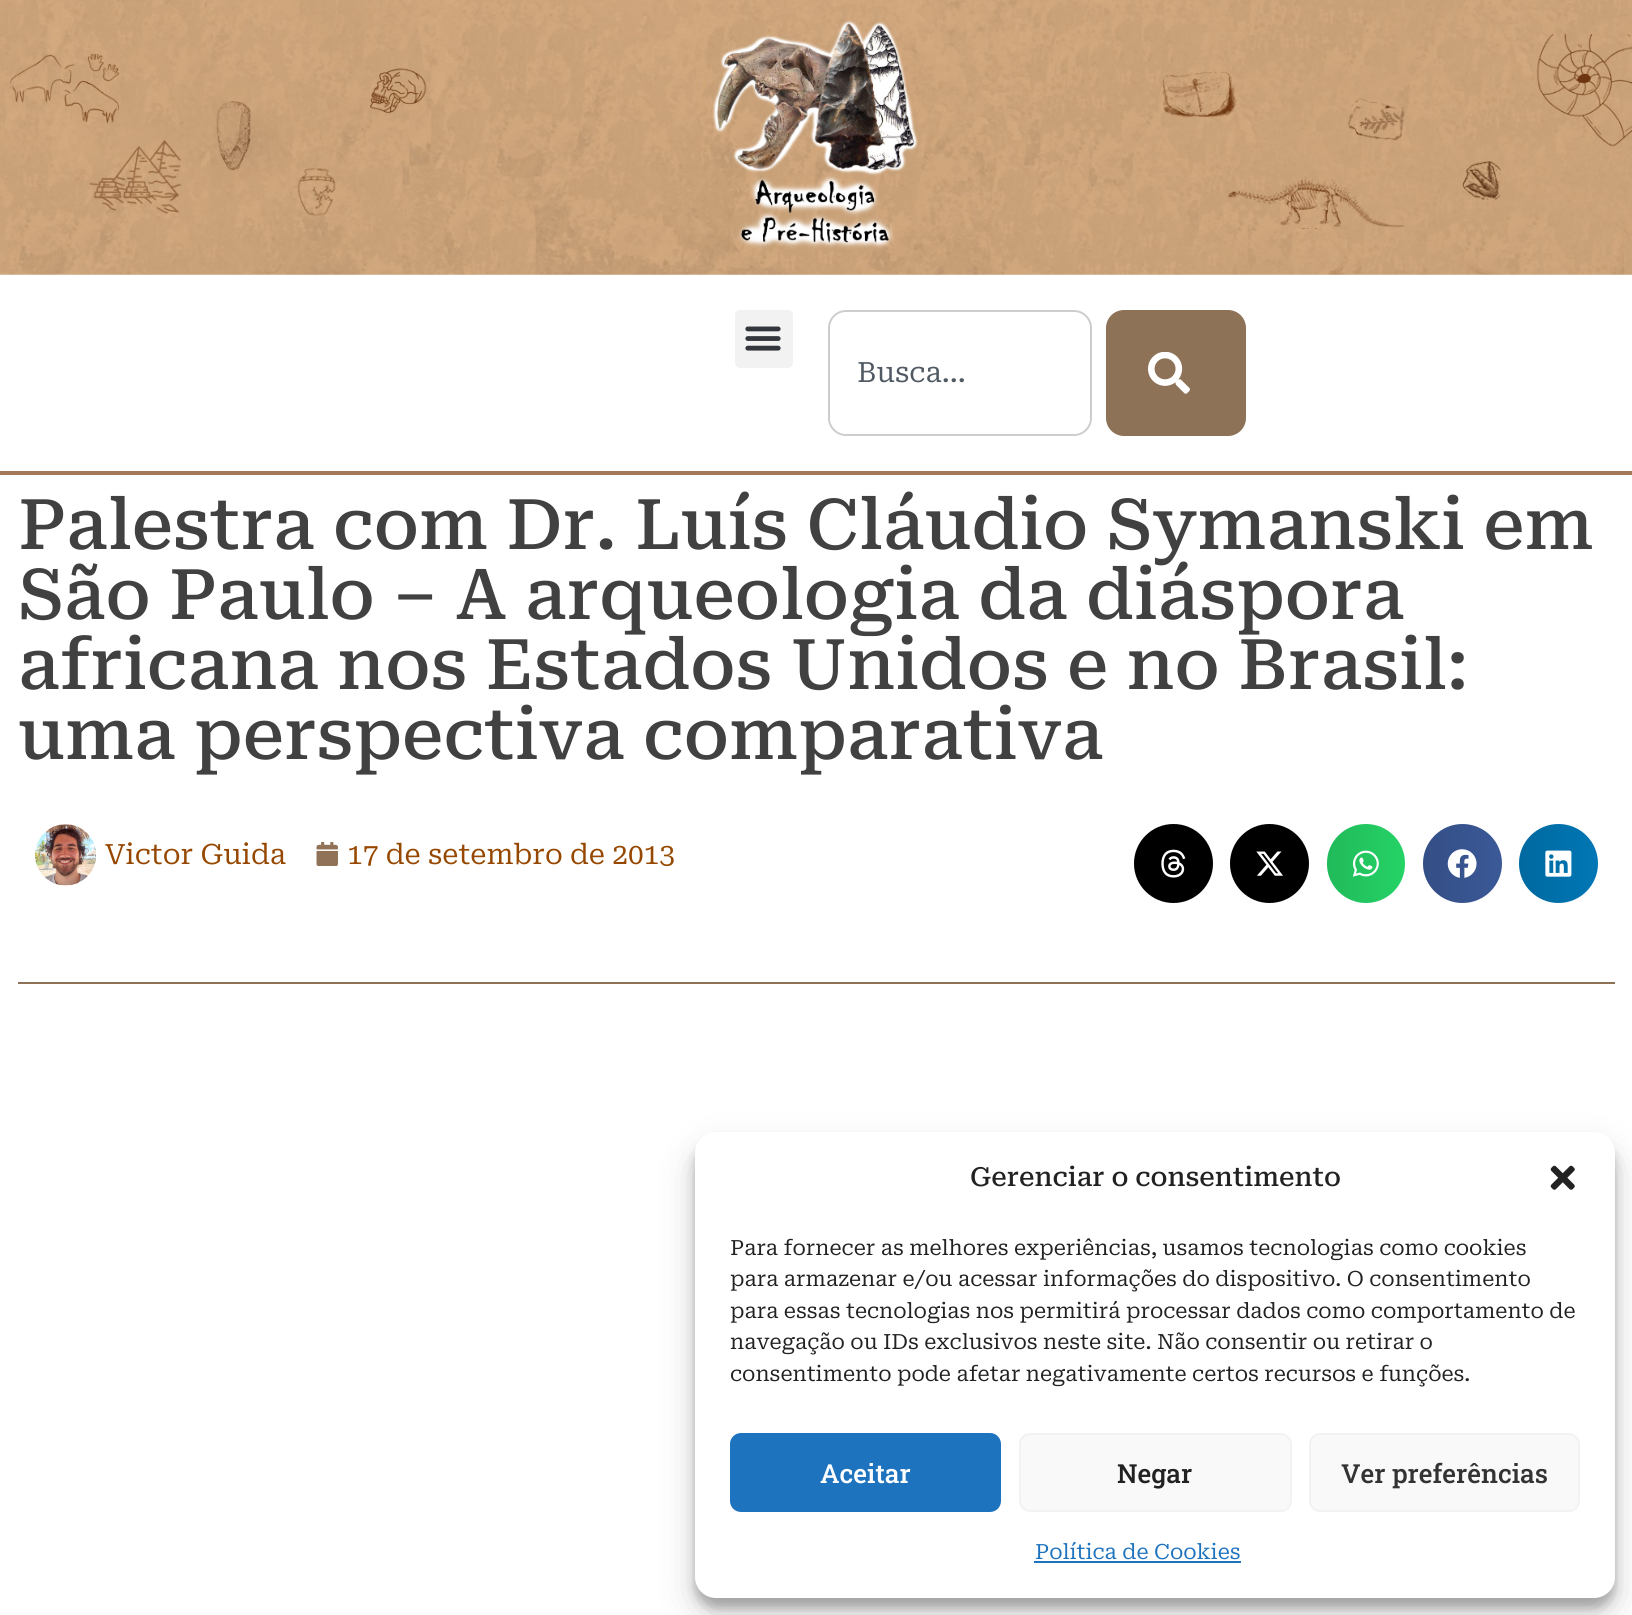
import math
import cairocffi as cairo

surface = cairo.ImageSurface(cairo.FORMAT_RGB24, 1632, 1615)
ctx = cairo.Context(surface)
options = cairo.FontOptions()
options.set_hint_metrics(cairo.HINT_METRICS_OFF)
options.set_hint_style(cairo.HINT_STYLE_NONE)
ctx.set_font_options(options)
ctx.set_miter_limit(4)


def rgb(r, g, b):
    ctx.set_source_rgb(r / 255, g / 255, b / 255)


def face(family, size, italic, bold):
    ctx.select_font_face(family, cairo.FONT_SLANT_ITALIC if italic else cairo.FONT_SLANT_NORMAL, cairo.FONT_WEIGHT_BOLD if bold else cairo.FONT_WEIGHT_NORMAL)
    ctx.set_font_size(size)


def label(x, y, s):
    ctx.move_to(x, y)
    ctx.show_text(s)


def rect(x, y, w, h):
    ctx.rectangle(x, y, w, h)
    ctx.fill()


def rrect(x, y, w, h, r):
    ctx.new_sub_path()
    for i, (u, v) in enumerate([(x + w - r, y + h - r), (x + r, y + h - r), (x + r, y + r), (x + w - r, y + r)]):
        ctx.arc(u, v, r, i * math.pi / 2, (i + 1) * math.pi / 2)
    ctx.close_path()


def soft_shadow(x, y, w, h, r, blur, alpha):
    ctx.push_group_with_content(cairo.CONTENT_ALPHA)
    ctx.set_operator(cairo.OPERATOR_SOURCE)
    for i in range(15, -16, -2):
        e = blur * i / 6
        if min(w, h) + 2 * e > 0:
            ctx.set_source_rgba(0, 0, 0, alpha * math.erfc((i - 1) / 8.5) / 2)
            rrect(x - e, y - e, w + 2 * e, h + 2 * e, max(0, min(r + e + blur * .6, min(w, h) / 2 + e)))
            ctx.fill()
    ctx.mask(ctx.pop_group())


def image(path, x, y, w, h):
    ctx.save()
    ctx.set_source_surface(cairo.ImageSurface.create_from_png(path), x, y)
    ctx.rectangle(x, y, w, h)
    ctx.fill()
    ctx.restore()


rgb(255, 255, 255)
ctx.paint()
image('image0.png', 0, 0, 1632, 275)
image('image1.png', 712, 20, 206, 237)
rgb(162, 123, 86)
rect(0, 471, 1632, 4)
rgb(242, 242, 242)
rrect(735, 310, 58, 58, 5)
ctx.fill()
image('image2.png', 745, 326, 36, 25)
rrect(829, 311, 262, 124, 17)
rgb(205, 205, 205)
ctx.stroke()
face('Roboto Serif', 28, 0, 0)
rgb(81, 89, 98)
label(857, 382, 'Busca...')
rgb(142, 114, 87)
rrect(1106, 310, 140, 126, 18)
ctx.fill()
image('image3.png', 1148, 352, 42, 42)
face('Roboto Serif Medium', 70, 0, 0)
rgb(66, 65, 65)
label(18, 549, 'Palestra com Dr. Luís Cláudio Symanski em')
label(18, 619, 'São Paulo – A arqueologia da diáspora')
label(18, 689, 'africana nos Estados Unidos e no Brasil:')
label(18, 759, 'uma perspectiva comparativa')
image('image4.png', 35, 824, 62, 62)
face('Roboto Serif', 28, 0, 0)
rgb(150, 72, 0)
label(105, 864, 'Victor Guida')
image('image5.png', 316, 842, 22, 24)
label(347, 864, '17 de setembro de 2013')
rgb(0, 0, 0)
ctx.new_path()
ctx.arc(1173.5, 863.5, 39.5, 0, 2 * math.pi)
ctx.fill()
gradient = cairo.LinearGradient(1134, 864, 1213, 864)
gradient.add_color_stop_rgba(0, 0, 0, 0, 0.12)
gradient.add_color_stop_rgba(1, 0, 0, 0, 0)
ctx.set_source(gradient)
ctx.arc(1173.5, 863.5, 39.5, 0, 2 * math.pi)
ctx.fill()
image('image6.png', 1161, 849, 25, 29)
rgb(0, 0, 0)
ctx.arc(1269.5, 863.5, 39.5, 0, 2 * math.pi)
ctx.fill()
gradient = cairo.LinearGradient(1230, 864, 1309, 864)
gradient.add_color_stop_rgba(0, 0, 0, 0, 0.12)
gradient.add_color_stop_rgba(1, 0, 0, 0, 0)
ctx.set_source(gradient)
ctx.arc(1269.5, 863.5, 39.5, 0, 2 * math.pi)
ctx.fill()
image('image7.png', 1256, 851, 27, 25)
rgb(37, 211, 102)
rrect(1327, 824, 78, 79, 39)
ctx.fill()
gradient = cairo.LinearGradient(1327, 864, 1405, 864)
gradient.add_color_stop_rgba(0, 0, 0, 0, 0.12)
gradient.add_color_stop_rgba(1, 0, 0, 0, 0)
ctx.set_source(gradient)
rrect(1327, 824, 78, 79, 39)
ctx.fill()
image('image8.png', 1352, 850, 27, 27)
rgb(59, 89, 152)
ctx.arc(1462.5, 863.5, 39.5, 0, 2 * math.pi)
ctx.fill()
gradient = cairo.LinearGradient(1423, 864, 1502, 864)
gradient.add_color_stop_rgba(0, 0, 0, 0, 0.12)
gradient.add_color_stop_rgba(1, 0, 0, 0, 0)
ctx.set_source(gradient)
ctx.arc(1462.5, 863.5, 39.5, 0, 2 * math.pi)
ctx.fill()
image('image9.png', 1447, 849, 30, 29)
rgb(0, 119, 181)
ctx.arc(1558.5, 863.5, 39.5, 0, 2 * math.pi)
ctx.fill()
gradient = cairo.LinearGradient(1519, 864, 1598, 864)
gradient.add_color_stop_rgba(0, 0, 0, 0, 0.12)
gradient.add_color_stop_rgba(1, 0, 0, 0, 0)
ctx.set_source(gradient)
ctx.arc(1558.5, 863.5, 39.5, 0, 2 * math.pi)
ctx.fill()
image('image10.png', 1545, 850, 27, 27)
rgb(142, 114, 87)
rect(18, 982, 1597, 2)
rgb(0, 0, 0)
soft_shadow(695, 1143, 920, 465, 21, 5, 0.23)
soft_shadow(695, 1150, 920, 465, 21, 17.5, 0.19)
rgb(255, 255, 255)
rrect(695, 1132, 920, 466, 21)
ctx.fill()
face('Roboto Serif Medium', 26.25, 0, 0)
rgb(34, 34, 34)
label(970, 1186, 'Gerenciar o consentimento')
image('image11.png', 1550, 1165, 25, 25)
face('Roboto Serif', 21, 0, 0)
label(730, 1255, 'Para fornecer as melhores experiências, usamos tecnologias como cookies')
label(730, 1286, 'para armazenar e/ou acessar informações do dispositivo. O consentimento')
label(730, 1318, 'para essas tecnologias nos permitirá processar dados como comportamento de')
label(730, 1349, 'navegação ou IDs exclusivos neste site. Não consentir ou retirar o')
label(730, 1381, 'consentimento pode afetar negativamente certos recursos e funções.')
rgb(30, 115, 190)
rrect(731, 1434, 269, 77, 10)
ctx.fill_preserve()
ctx.stroke()
face('Roboto Slab Medium', 26.25, 0, 0)
rgb(255, 255, 255)
label(820, 1483, 'Aceitar')
rgb(249, 249, 249)
rrect(1020, 1434, 271, 77, 10)
ctx.fill_preserve()
rgb(242, 242, 242)
ctx.stroke()
rgb(34, 34, 34)
label(1117, 1483, 'Negar')
rgb(249, 249, 249)
rrect(1310, 1434, 269, 77, 10)
ctx.fill_preserve()
rgb(242, 242, 242)
ctx.stroke()
rgb(51, 51, 51)
label(1341, 1483, 'Ver preferências')
face('Roboto Serif', 21, 0, 0)
rgb(30, 115, 190)
label(1035, 1559, 'Política de Cookies')
rect(1034, 1561, 207, 2)
surface.write_to_png('render.png')
